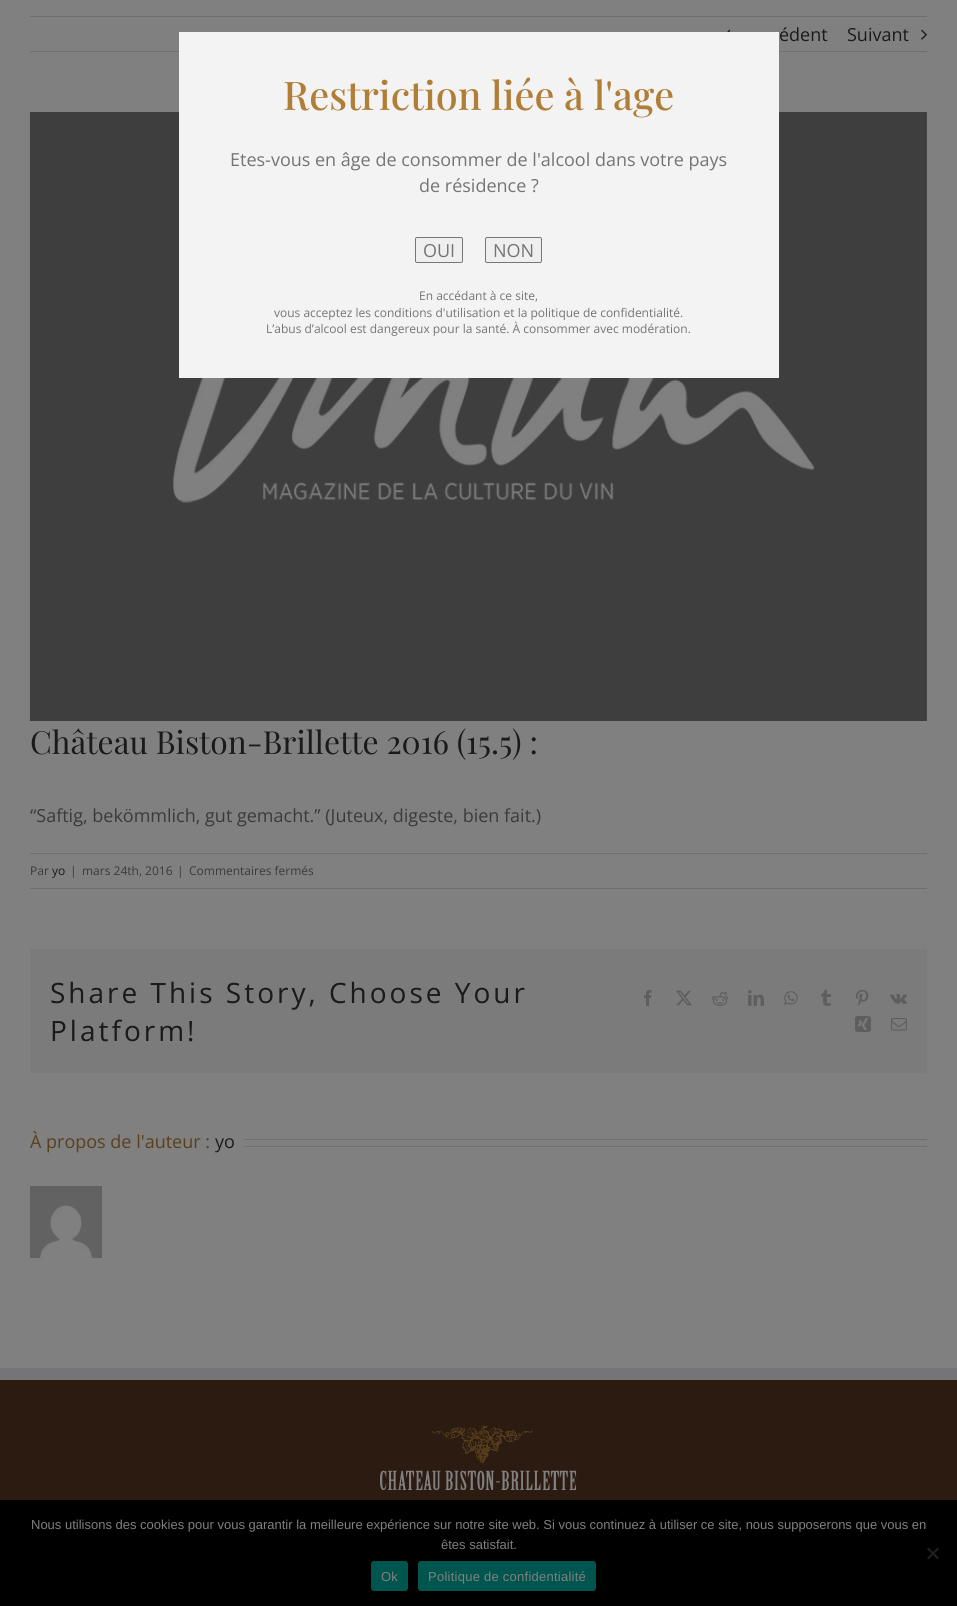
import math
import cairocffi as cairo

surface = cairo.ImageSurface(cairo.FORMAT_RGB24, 957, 1606)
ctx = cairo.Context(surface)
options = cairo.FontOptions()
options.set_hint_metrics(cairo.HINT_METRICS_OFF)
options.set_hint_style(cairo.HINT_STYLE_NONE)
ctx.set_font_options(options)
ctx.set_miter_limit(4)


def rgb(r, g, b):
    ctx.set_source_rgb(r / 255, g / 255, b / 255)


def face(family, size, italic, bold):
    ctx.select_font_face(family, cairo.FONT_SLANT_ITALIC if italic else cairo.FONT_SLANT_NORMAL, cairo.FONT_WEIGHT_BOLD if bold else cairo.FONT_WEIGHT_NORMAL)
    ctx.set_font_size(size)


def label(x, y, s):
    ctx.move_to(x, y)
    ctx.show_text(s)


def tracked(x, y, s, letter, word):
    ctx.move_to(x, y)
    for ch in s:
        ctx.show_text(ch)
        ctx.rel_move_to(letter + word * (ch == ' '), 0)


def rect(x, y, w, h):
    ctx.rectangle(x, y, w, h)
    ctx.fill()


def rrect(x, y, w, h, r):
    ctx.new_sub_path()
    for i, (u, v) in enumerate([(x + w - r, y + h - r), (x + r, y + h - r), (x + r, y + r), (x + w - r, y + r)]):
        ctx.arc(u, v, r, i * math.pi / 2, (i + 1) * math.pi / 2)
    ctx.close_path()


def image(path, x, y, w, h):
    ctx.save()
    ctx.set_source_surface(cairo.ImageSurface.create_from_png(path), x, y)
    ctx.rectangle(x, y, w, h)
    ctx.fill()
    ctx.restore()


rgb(128, 128, 128)
ctx.paint()
rgb(112, 111, 111)
rect(30, 16, 897, 1)
rect(30, 51, 897, 1)
image('image0.png', 727, 29, 4, 3)
face('Open Sans', 18, 0, 0)
rgb(26, 26, 26)
label(779, 41, 'édent')
label(847, 41, 'Suivant')
image('image1.png', 921, 29, 6, 11)
image('image2.png', 30, 112, 897, 609)
face('Playfair Display', 31.75, 0, 0)
label(30, 754, 'Château Biston-Brillette 2016 (15.5) :')
face('Open Sans', 18, 0, 0)
rgb(58, 58, 58)
label(30, 822, '“Saftig, bekömmlich, gut gemacht.” (Juteux, digeste, bien fait.)')
rgb(112, 111, 111)
rect(30, 853, 897, 1)
rect(30, 888, 897, 1)
face('Open Sans', 12, 0, 0)
rgb(58, 58, 58)
label(30, 875, 'Par')
rgb(26, 26, 26)
label(52, 875, 'yo')
rgb(58, 58, 58)
label(70, 875, '|')
label(82, 875, 'mars 24th, 2016')
label(177, 875, '|')
label(189, 875, 'Commentaires fermés')
rgb(123, 123, 123)
rect(30, 949, 897, 124)
face('Open Sans', 28, 0, 0)
rgb(26, 26, 26)
tracked(50, 1003, 'Share This Story, Choose Your', 3, 0)
tracked(50, 1041, 'Platform!', 3, 0)
image('image3.png', 644, 990, 8, 16)
image('image4.png', 676, 990, 16, 16)
image('image5.png', 712, 992, 16, 14)
image('image6.png', 748, 990, 16, 16)
image('image7.png', 784, 991, 14, 14)
image('image8.png', 821, 990, 10, 16)
image('image9.png', 855, 990, 14, 16)
image('image10.png', 890, 994, 17, 10)
image('image11.png', 855, 1016, 16, 16)
image('image12.png', 891, 1018, 16, 13)
face('Open Sans', 18, 0, 0)
rgb(89, 63, 28)
label(30, 1148, 'À propos de l\'auteur :')
rgb(26, 26, 26)
label(215, 1148, 'yo')
rgb(112, 111, 111)
rect(244, 1139, 683, 1)
rect(244, 1146, 683, 1)
image('image13.png', 30, 1186, 72, 72)
rgb(43, 27, 17)
rect(0, 1380, 957, 120)
rgb(117, 117, 119)
rect(0, 1368, 957, 12)
image('image14.png', 380, 1426, 197, 65)
rgb(243, 243, 243)
rect(179, 32, 600, 346)
face('Playfair Display Medium', 39.5, 0, 0)
rgb(177, 126, 56)
label(283, 110, 'Restriction liée à l\'age')
face('Open Sans', 18, 0, 0)
rgb(116, 116, 116)
label(230, 166, 'Etes-vous en âge de consommer de l\'alcool dans votre pays')
label(419, 192, 'de résidence ?')
rgb(239, 239, 239)
rrect(415.5, 237.5, 47, 25, 1.5)
ctx.fill_preserve()
rgb(118, 118, 118)
ctx.set_line_width(1)
ctx.stroke()
rgb(116, 116, 116)
label(423, 257, 'OUI')
rgb(239, 239, 239)
rrect(485.5, 237.5, 56, 25, 1.5)
ctx.fill_preserve()
rgb(118, 118, 118)
ctx.stroke()
rgb(116, 116, 116)
label(493, 257, 'NON')
face('Open Sans', 12, 0, 0)
label(419, 300, 'En accédant à ce site,')
label(274, 317, 'vous acceptez les conditions d\'utilisation et la politique de confidentialité.')
label(266, 333, 'L’abus d’alcool est dangereux pour la santé. À consommer avec modération.')
rgb(0, 0, 0)
rect(0, 1500, 957, 106)
face('Liberation Sans', 13, 0, 0)
rgb(128, 128, 128)
label(31, 1529, 'Nous utilisons des cookies pour vous garantir la meilleure expérience sur notre site web. Si vous continuez à utiliser ce site, nous supposerons que vous en')
label(441, 1549, 'êtes satisfait.')
rgb(32, 32, 32)
ctx.new_path()
ctx.move_to(937.5, 1547.5)
ctx.line_to(939, 1549)
ctx.line_to(928.5, 1559.5)
ctx.line_to(927, 1558)
ctx.close_path()
ctx.fill()
ctx.new_path()
ctx.move_to(927, 1549)
ctx.line_to(928.5, 1547.5)
ctx.line_to(939, 1558)
ctx.line_to(937.5, 1559.5)
ctx.close_path()
ctx.fill()
rgb(0, 85, 79)
rrect(371, 1561, 37, 30, 3)
ctx.fill()
rgb(128, 128, 128)
tracked(381, 1581, 'Ok', 0.25, 0)
rgb(0, 85, 79)
rrect(418, 1561, 178, 30, 3)
ctx.fill()
rgb(128, 128, 128)
tracked(428, 1581, 'Politique de confidentialité', 0.25, 0)
surface.write_to_png('render.png')
